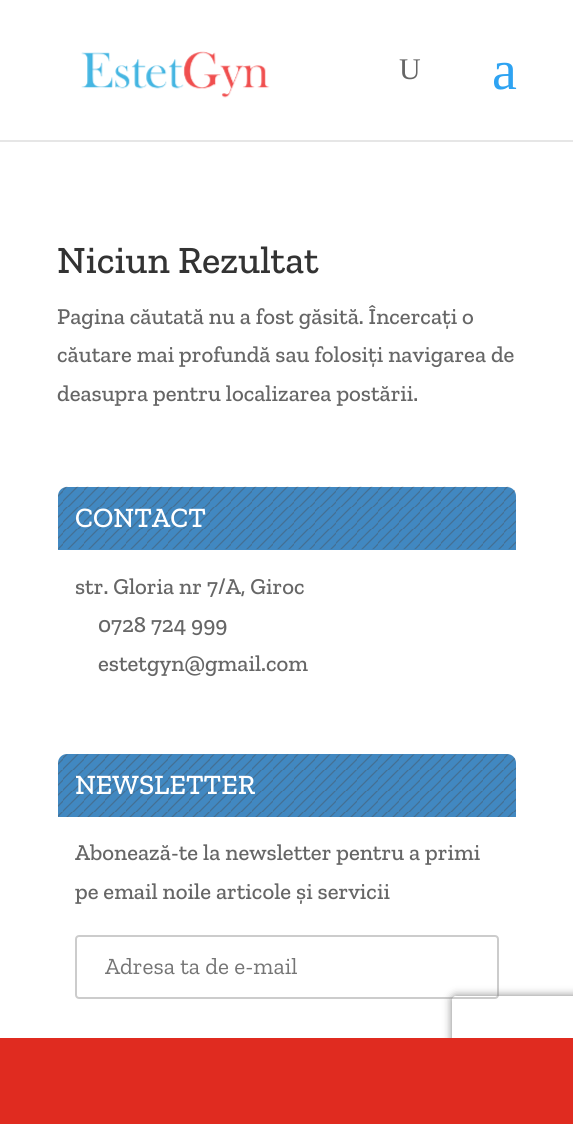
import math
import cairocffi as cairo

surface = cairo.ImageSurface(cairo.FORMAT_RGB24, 573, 1124)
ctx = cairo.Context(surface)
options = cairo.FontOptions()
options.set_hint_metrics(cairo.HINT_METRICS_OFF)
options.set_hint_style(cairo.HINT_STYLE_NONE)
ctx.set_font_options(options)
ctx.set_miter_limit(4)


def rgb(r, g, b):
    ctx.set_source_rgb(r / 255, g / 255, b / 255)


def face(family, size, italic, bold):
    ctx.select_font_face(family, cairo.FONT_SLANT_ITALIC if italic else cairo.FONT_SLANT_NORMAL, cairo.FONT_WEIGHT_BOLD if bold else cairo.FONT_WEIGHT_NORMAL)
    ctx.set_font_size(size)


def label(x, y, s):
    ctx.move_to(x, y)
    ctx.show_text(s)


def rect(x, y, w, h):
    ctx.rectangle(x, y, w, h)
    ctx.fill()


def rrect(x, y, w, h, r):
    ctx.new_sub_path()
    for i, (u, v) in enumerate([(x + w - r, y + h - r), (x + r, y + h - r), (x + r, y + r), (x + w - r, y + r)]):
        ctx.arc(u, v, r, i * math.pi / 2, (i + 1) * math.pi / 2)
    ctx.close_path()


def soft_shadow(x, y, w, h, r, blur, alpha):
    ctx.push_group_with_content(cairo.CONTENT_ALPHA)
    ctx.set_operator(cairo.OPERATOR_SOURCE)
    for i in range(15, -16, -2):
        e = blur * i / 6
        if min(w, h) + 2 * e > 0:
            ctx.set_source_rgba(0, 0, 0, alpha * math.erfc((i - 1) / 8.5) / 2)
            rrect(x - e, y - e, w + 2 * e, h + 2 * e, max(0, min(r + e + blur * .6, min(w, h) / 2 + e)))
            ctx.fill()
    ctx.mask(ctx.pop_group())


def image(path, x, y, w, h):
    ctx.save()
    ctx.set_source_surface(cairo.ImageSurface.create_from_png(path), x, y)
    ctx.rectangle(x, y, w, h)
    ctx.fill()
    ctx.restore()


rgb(255, 255, 255)
ctx.paint()
rgb(230, 230, 230)
rect(0, 140, 573, 2)
image('image0.png', 81, 51, 189, 47)
face('Liberation Serif', 30, 0, 0)
rgb(102, 102, 102)
label(399, 79, 'U')
face('Liberation Serif', 56, 0, 0)
rgb(46, 163, 242)
label(492, 89, 'a')
face('Zilla Slab Medium', 38.5, 0, 0)
rgb(51, 51, 51)
label(57, 273, 'Niciun Rezultat')
face('Zilla Slab Medium', 22.75, 0, 0)
rgb(102, 102, 102)
label(57, 324, 'Pagina căutată nu a fost găsită. Încercați o')
label(57, 362, 'căutare mai profundă sau folosiți navigarea de')
label(57, 401, 'deasupra pentru localizarea postării.')
rgb(65, 136, 193)
ctx.new_path()
ctx.move_to(67, 487)
ctx.line_to(507, 487)
ctx.curve_to(512, 487, 516, 491, 516, 496)
ctx.line_to(516, 550)
ctx.line_to(58, 550)
ctx.line_to(58, 496)
ctx.curve_to(58, 491, 62, 487, 67, 487)
ctx.close_path()
ctx.fill()
image('image1.png', 58, 486, 458, 64)
face('Zilla Slab Medium', 28, 0, 0)
rgb(255, 255, 255)
label(75, 527, 'CONTACT')
face('Zilla Slab Medium', 22.75, 0, 0)
rgb(102, 102, 102)
label(75, 594, 'str. Gloria nr 7/A, Giroc')
label(98, 632, '0728 724 999')
label(98, 671, 'estetgyn@gmail.com')
rgb(65, 136, 193)
ctx.new_path()
ctx.move_to(67, 754)
ctx.line_to(507, 754)
ctx.curve_to(512, 754, 516, 758, 516, 763)
ctx.line_to(516, 817)
ctx.line_to(58, 817)
ctx.line_to(58, 763)
ctx.curve_to(58, 758, 62, 754, 67, 754)
ctx.close_path()
ctx.fill()
image('image2.png', 58, 754, 458, 63)
face('Zilla Slab Medium', 28, 0, 0)
rgb(255, 255, 255)
label(75, 794, 'NEWSLETTER')
face('Zilla Slab Medium', 22.75, 0, 0)
rgb(102, 102, 102)
label(75, 860, 'Abonează-te la newsletter pentru a primi')
label(75, 899, 'pe email noile articole și servicii')
rrect(76, 936, 422, 62, 3)
rgb(204, 204, 204)
ctx.stroke()
face('Zilla Slab', 23.25, 0, 0)
rgb(117, 117, 117)
label(105, 974, 'Adresa ta de e-mail')
ctx.save()
ctx.set_fill_rule(cairo.FILL_RULE_EVEN_ODD)
ctx.new_path()
ctx.move_to(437, 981)
ctx.line_to(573, 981)
ctx.line_to(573, 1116)
ctx.line_to(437, 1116)
ctx.close_path()
ctx.move_to(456, 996)
ctx.line_to(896, 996)
ctx.curve_to(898, 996, 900, 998, 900, 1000)
ctx.line_to(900, 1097)
ctx.curve_to(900, 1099, 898, 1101, 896, 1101)
ctx.line_to(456, 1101)
ctx.curve_to(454, 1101, 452, 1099, 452, 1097)
ctx.line_to(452, 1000)
ctx.curve_to(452, 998, 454, 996, 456, 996)
ctx.close_path()
ctx.clip()
rgb(128, 128, 128)
soft_shadow(452, 996, 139, 105, 4, 4.5, 1)
ctx.restore()
rgb(224, 43, 32)
rect(0, 1038, 573, 86)
surface.write_to_png('render.png')
